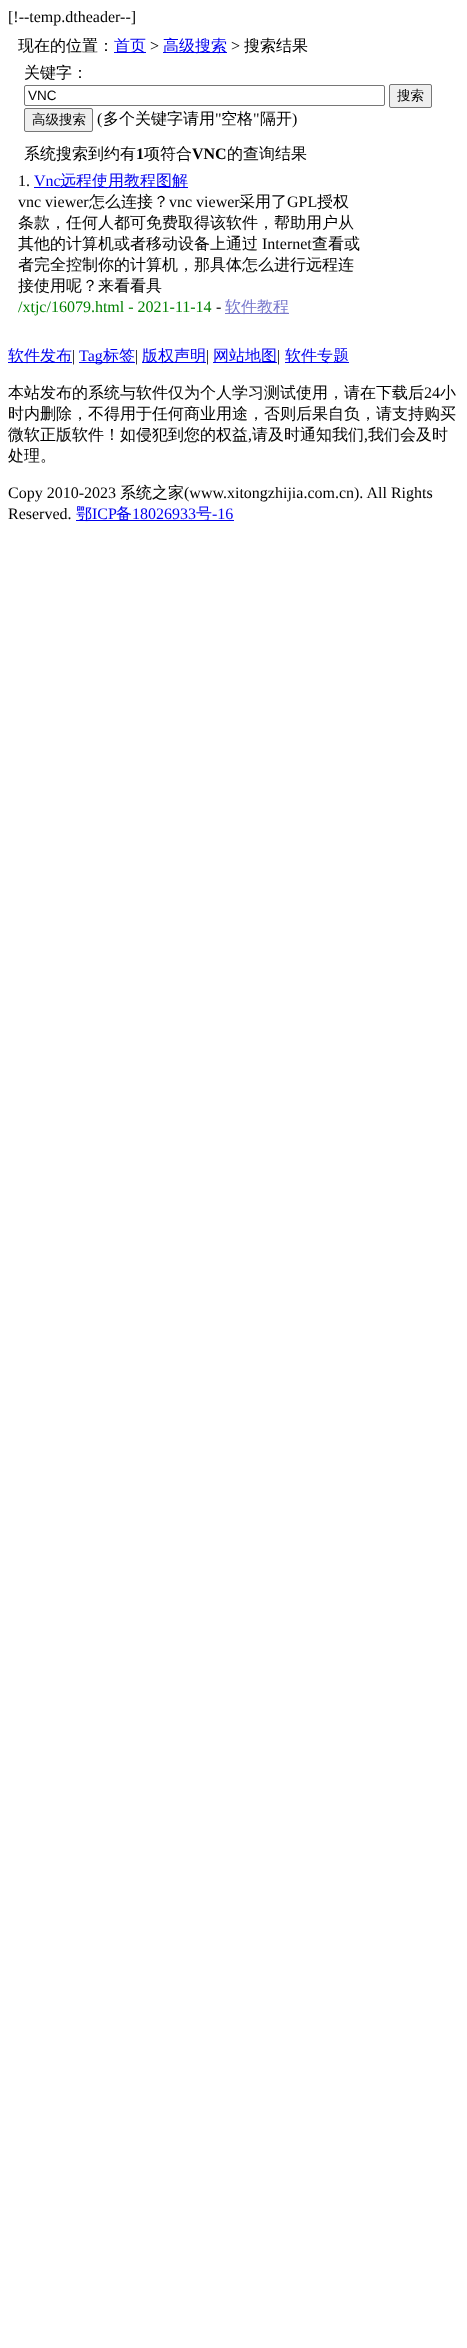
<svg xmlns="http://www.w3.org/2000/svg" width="467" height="2348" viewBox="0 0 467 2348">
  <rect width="100%" height="100%" fill="#fff"/>
  <path d="M114 52h32v1H114z" fill="#00e"/>
  <path d="M163 52h64v1H163z" fill="#00e"/>
  <rect x="24.5" y="85.5" width="360" height="20" rx="1.5" fill="none" stroke="#767676"/>
  <rect x="389.5" y="84.5" width="42" height="23" rx="1.5" fill="#efefef" stroke="#767676"/>
  <rect x="24.5" y="108.5" width="68" height="23" rx="1.5" fill="#efefef" stroke="#767676"/>
  <path d="M34 187h154v1H34z" fill="#00e"/>
  <path d="M225 313h64v1H225z" fill="#77c"/>
  <path d="M8 362h64v1H8z" fill="#00e"/>
  <path d="M79 362h56v1H79z" fill="#00e"/>
  <path d="M142 362h64v1H142z" fill="#00e"/>
  <path d="M213 362h64v1H213z" fill="#00e"/>
  <path d="M285 362h64v1H285z" fill="#00e"/>
  <path d="M76 520h158v1H76z" fill="#00e"/>
  <text x="8" y="22" font-family="Liberation Serif" font-size="16" fill="#000">[!--temp.dtheader--]</text>
  <text x="18" y="51" font-family="WenQuanYi Zen Hei" font-size="16" font-weight="500" fill="#000">现在的位置：</text>
  <text x="114" y="51" font-family="WenQuanYi Zen Hei" font-size="16" font-weight="500" fill="#00e">首页</text>
  <text x="150" y="51" font-family="Liberation Serif" font-size="16" fill="#000">&gt;</text>
  <text x="163" y="51" font-family="WenQuanYi Zen Hei" font-size="16" font-weight="500" fill="#00e">高级搜索</text>
  <text x="231" y="51" font-family="Liberation Serif" font-size="16" fill="#000">&gt;</text>
  <g font-family="WenQuanYi Zen Hei" font-size="16" font-weight="500" fill="#000">
    <text x="244" y="51">搜索结果</text>
    <text x="24" y="78">关键字：</text>
  </g>
  <text x="28" y="100" font-family="Liberation Sans" font-size="13.5" fill="#000">VNC</text>
  <g font-family="WenQuanYi Zen Hei" font-size="13.5" font-weight="500" fill="#000">
    <text x="397" y="100">搜索</text>
    <text x="32" y="124">高级搜索</text>
  </g>
  <text x="97" y="124" font-family="Liberation Serif" font-size="16" fill="#000">(</text>
  <text x="103" y="124" font-family="WenQuanYi Zen Hei" font-size="16" font-weight="500" fill="#000">多个关键字请用</text>
  <text x="215" y="124" font-family="Liberation Serif" font-size="16" fill="#000">"</text>
  <text x="221" y="124" font-family="WenQuanYi Zen Hei" font-size="16" font-weight="500" fill="#000">空格</text>
  <text x="253" y="124" font-family="Liberation Serif" font-size="16" fill="#000">"</text>
  <text x="260" y="124" font-family="WenQuanYi Zen Hei" font-size="16" font-weight="500" fill="#000">隔开</text>
  <text x="292" y="124" font-family="Liberation Serif" font-size="16" fill="#000">)</text>
  <text x="24" y="159" font-family="WenQuanYi Zen Hei" font-size="16" font-weight="500" fill="#000">系统搜索到约有</text>
  <text x="136" y="159" font-family="Liberation Serif" font-size="16" font-weight="bold" fill="#000">1</text>
  <text x="144" y="159" font-family="WenQuanYi Zen Hei" font-size="16" font-weight="500" fill="#000">项符合</text>
  <text x="192" y="159" font-family="Liberation Serif" font-size="16" font-weight="bold" fill="#000">VNC</text>
  <text x="227" y="159" font-family="WenQuanYi Zen Hei" font-size="16" font-weight="500" fill="#000">的查询结果</text>
  <text x="18" y="186" font-family="Liberation Serif" font-size="16" fill="#000">1.</text>
  <text x="34" y="186" font-family="Liberation Serif" font-size="16" fill="#00e">Vnc</text>
  <text x="60" y="186" font-family="WenQuanYi Zen Hei" font-size="16" font-weight="500" fill="#00e">远程使用教程图解</text>
  <text x="18" y="207" font-family="Liberation Serif" font-size="16" fill="#000">vnc viewer</text>
  <text x="89" y="207" font-family="WenQuanYi Zen Hei" font-size="16" font-weight="500" fill="#000">怎么连接？</text>
  <text x="169" y="207" font-family="Liberation Serif" font-size="16" fill="#000">vnc viewer</text>
  <text x="239" y="207" font-family="WenQuanYi Zen Hei" font-size="16" font-weight="500" fill="#000">采用了</text>
  <text x="287" y="207" font-family="Liberation Serif" font-size="16" fill="#000">GPL</text>
  <g font-family="WenQuanYi Zen Hei" font-size="16" font-weight="500" fill="#000">
    <text x="317" y="207">授权</text>
    <text x="18" y="228">条款，任何人都可免费取得该软件，帮助用户从</text>
    <text x="18" y="249">其他的计算机或者移动设备上通过</text>
  </g>
  <text x="262" y="249" font-family="Liberation Serif" font-size="16" fill="#000">Internet</text>
  <g font-family="WenQuanYi Zen Hei" font-size="16" font-weight="500" fill="#000">
    <text x="312" y="249">查看或</text>
    <text x="18" y="270">者完全控制你的计算机，那具体怎么进行远程连</text>
    <text x="18" y="291">接使用呢？来看看具</text>
  </g>
  <text x="18" y="312" font-family="Liberation Serif" font-size="16" fill="#008000">/xtjc/16079.html - 2021-11-14</text>
  <text x="216" y="312" font-family="Liberation Serif" font-size="16" fill="#000">-</text>
  <text x="225" y="312" font-family="WenQuanYi Zen Hei" font-size="16" font-weight="500" fill="#77c">软件教程</text>
  <text x="8" y="361" font-family="WenQuanYi Zen Hei" font-size="16" font-weight="500" fill="#00e">软件发布</text>
  <text x="72" y="361" font-family="Liberation Serif" font-size="16" fill="#000">|</text>
  <text x="79" y="361" font-family="Liberation Serif" font-size="16" fill="#00e">Tag</text>
  <text x="103" y="361" font-family="WenQuanYi Zen Hei" font-size="16" font-weight="500" fill="#00e">标签</text>
  <text x="135" y="361" font-family="Liberation Serif" font-size="16" fill="#000">|</text>
  <text x="142" y="361" font-family="WenQuanYi Zen Hei" font-size="16" font-weight="500" fill="#00e">版权声明</text>
  <text x="206" y="361" font-family="Liberation Serif" font-size="16" fill="#000">|</text>
  <text x="213" y="361" font-family="WenQuanYi Zen Hei" font-size="16" font-weight="500" fill="#00e">网站地图</text>
  <text x="277" y="361" font-family="Liberation Serif" font-size="16" fill="#000">|</text>
  <text x="285" y="361" font-family="WenQuanYi Zen Hei" font-size="16" font-weight="500" fill="#00e">软件专题</text>
  <text x="8" y="398" font-family="WenQuanYi Zen Hei" font-size="16" font-weight="500" fill="#000">本站发布的系统与软件仅为个人学习测试使用，请在下载后</text>
  <text x="424" y="398" font-family="Liberation Serif" font-size="16" fill="#000">24</text>
  <g font-family="WenQuanYi Zen Hei" font-size="16" font-weight="500" fill="#000">
    <text x="440" y="398">小</text>
    <text x="8" y="419">时内删除，不得用于任何商业用途，否则后果自负，请支持购买</text>
    <text x="8" y="440">微软正版软件！如侵犯到您的权益</text>
  </g>
  <text x="248" y="440" font-family="Liberation Serif" font-size="16" fill="#000">,</text>
  <text x="252" y="440" font-family="WenQuanYi Zen Hei" font-size="16" font-weight="500" fill="#000">请及时通知我们</text>
  <text x="364" y="440" font-family="Liberation Serif" font-size="16" fill="#000">,</text>
  <g font-family="WenQuanYi Zen Hei" font-size="16" font-weight="500" fill="#000">
    <text x="368" y="440">我们会及时</text>
    <text x="8" y="461">处理。</text>
  </g>
  <text x="8" y="498" font-family="Liberation Serif" font-size="16" fill="#000">Copy 2010-2023</text>
  <text x="120" y="498" font-family="WenQuanYi Zen Hei" font-size="16" font-weight="500" fill="#000">系统之家</text>
  <g font-family="Liberation Serif" font-size="16" fill="#000">
    <text x="184" y="498">(www.xitongzhijia.com.cn). All Rights</text>
    <text x="8" y="519">Reserved.</text>
  </g>
  <text x="76" y="519" font-family="WenQuanYi Zen Hei" font-size="16" font-weight="500" fill="#00e">鄂</text>
  <text x="92" y="519" font-family="Liberation Serif" font-size="16" fill="#00e">ICP</text>
  <text x="116" y="519" font-family="WenQuanYi Zen Hei" font-size="16" font-weight="500" fill="#00e">备</text>
  <text x="132" y="519" font-family="Liberation Serif" font-size="16" fill="#00e">18026933</text>
  <text x="196" y="519" font-family="WenQuanYi Zen Hei" font-size="16" font-weight="500" fill="#00e">号</text>
  <text x="212" y="519" font-family="Liberation Serif" font-size="16" fill="#00e">-16</text>
</svg>
